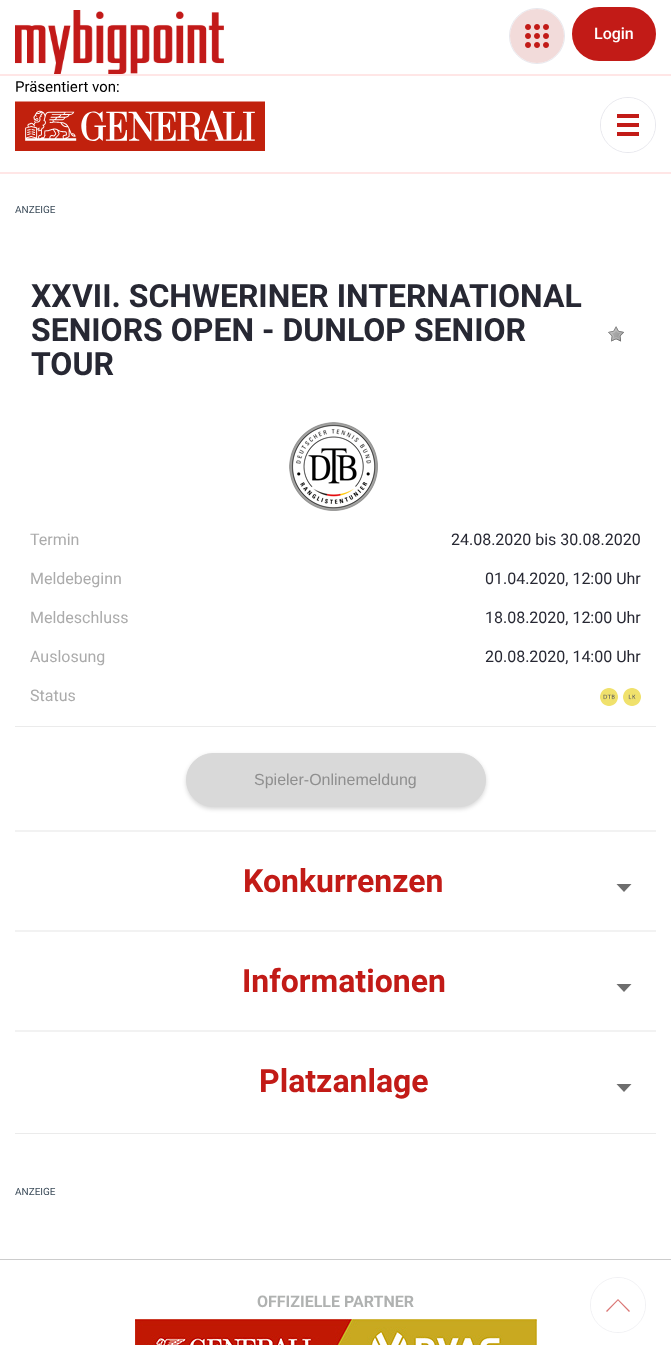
<svg xmlns="http://www.w3.org/2000/svg" width="671" height="1345" viewBox="0 0 671 1345">
  <rect width="100%" height="100%" fill="#fff"/>
  <image x="15" y="10" width="209" height="64" href="img/1.png"/>
  <circle cx="537" cy="36" r="27.5" fill="none" stroke="#e7e7ed"/>
  <circle cx="537" cy="36" r="27" fill="#f2dbda"/>
  <image x="525" y="24" width="24" height="24" href="img/2.png"/>
  <rect x="573" y="8" width="82" height="52" rx="26" fill="#c21b17" stroke="#c21b17" stroke-width="2"/>
  <image x="15" y="81" width="250" height="70" href="img/3.png"/>
  <path d="M0 74h671v2H0z" fill="#ffe6e6"/>
  <path d="M0 172h671v2H0z" fill="#ffe6e6"/>
  <circle cx="628" cy="125" r="27.5" fill="none" stroke="#e7e7ed"/>
  <circle cx="628" cy="125" r="27" fill="#fff"/>
  <path d="M617 114h22v4H617z" fill="#c21b17"/>
  <path d="M617 123h22v4H617z" fill="#c21b17"/>
  <path d="M617 132h22v4H617z" fill="#c21b17"/>
  <image x="608" y="326" width="16" height="16" href="img/4.png"/>
  <image x="289" y="422" width="89" height="89" href="img/5.png"/>
  <image x="600" y="688" width="18" height="18" href="img/6.png"/>
  <image x="623" y="688" width="18" height="18" href="img/7.png"/>
  <path d="M15 726h641v1H15z" fill="#ebebeb"/>
  <rect x="186" y="755" width="300" height="54" rx="27" fill="#00000029" filter="blur(2px)"/>
  <rect x="186.5" y="753.5" width="299" height="53" rx="26.5" fill="#d9d9d9" stroke="#d9d9d9"/>
  <path d="M15 830h641v2H15z" fill="#f2f2f2"/>
  <path d="M631.5 884L624 892L616.5 884Z" fill="#6e6e6e"/>
  <path d="M15 930h641v2H15z" fill="#f2f2f2"/>
  <path d="M631.5 984L624 992L616.5 984Z" fill="#6e6e6e"/>
  <path d="M15 1030h641v2H15z" fill="#f2f2f2"/>
  <path d="M631.5 1084L624 1092L616.5 1084Z" fill="#6e6e6e"/>
  <path d="M15 1133h641v1H15z" fill="#ebebeb"/>
  <circle cx="618" cy="1305" r="27.5" fill="none" stroke="#f1f1f4"/>
  <circle cx="618" cy="1305" r="27" fill="#fff"/>
  <path d="M618 1300.5L607 1312L606 1311L618 1299L630 1311L629 1312Z" fill="#da7674"/>
  <path d="M0 1259h671v1H0z" fill="#ccc"/>
  <image x="135" y="1319" width="402" height="26" href="img/8.png"/>
  <text x="594" y="39" font-family="Roboto" font-size="16" font-weight="500" fill="#fff">Login</text>
  <text x="15" y="213" font-family="Roboto" font-size="10" fill="#3b4b59">ANZEIGE</text>
  <g font-family="'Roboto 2'" font-size="32" font-weight="bold" fill="#272833">
    <text x="31" y="307">XXVII. SCHWERINER INTERNATIONAL</text>
    <text x="31" y="341">SENIORS OPEN - DUNLOP SENIOR</text>
    <text x="31" y="375">TOUR</text>
  </g>
  <text x="30" y="545" font-family="'Roboto 2'" font-size="16" fill="#ababab">Termin</text>
  <text x="451" y="545" font-family="'Roboto 2'" font-size="16" fill="#272833">24.08.2020 bis 30.08.2020</text>
  <text x="30" y="584" font-family="'Roboto 2'" font-size="16" fill="#ababab">Meldebeginn</text>
  <text x="485" y="584" font-family="'Roboto 2'" font-size="16" fill="#272833">01.04.2020, 12:00 Uhr</text>
  <text x="30" y="623" font-family="'Roboto 2'" font-size="16" fill="#ababab">Meldeschluss</text>
  <text x="485" y="623" font-family="'Roboto 2'" font-size="16" fill="#272833">18.08.2020, 12:00 Uhr</text>
  <text x="30" y="662" font-family="'Roboto 2'" font-size="16" fill="#ababab">Auslosung</text>
  <text x="485" y="662" font-family="'Roboto 2'" font-size="16" fill="#272833">20.08.2020, 14:00 Uhr</text>
  <text x="30" y="701" font-family="'Roboto 2'" font-size="16" fill="#ababab">Status</text>
  <text x="254" y="785" font-family="Liberation Sans" font-size="16" fill="#8f8f8f">Spieler-Onlinemeldung</text>
  <g font-family="'Roboto 2'" font-size="32" font-weight="bold" fill="#c21b17">
    <text x="243" y="892">Konkurrenzen</text>
    <text x="242" y="992">Informationen</text>
    <text x="259" y="1092">Platzanlage</text>
  </g>
  <text x="15" y="1195" font-family="'Roboto 2'" font-size="10" fill="#3b4b59">ANZEIGE</text>
  <text x="257" y="1307" font-family="Roboto" font-size="16" font-weight="bold" fill="#b0b2b1">OFFIZIELLE PARTNER</text>
</svg>
